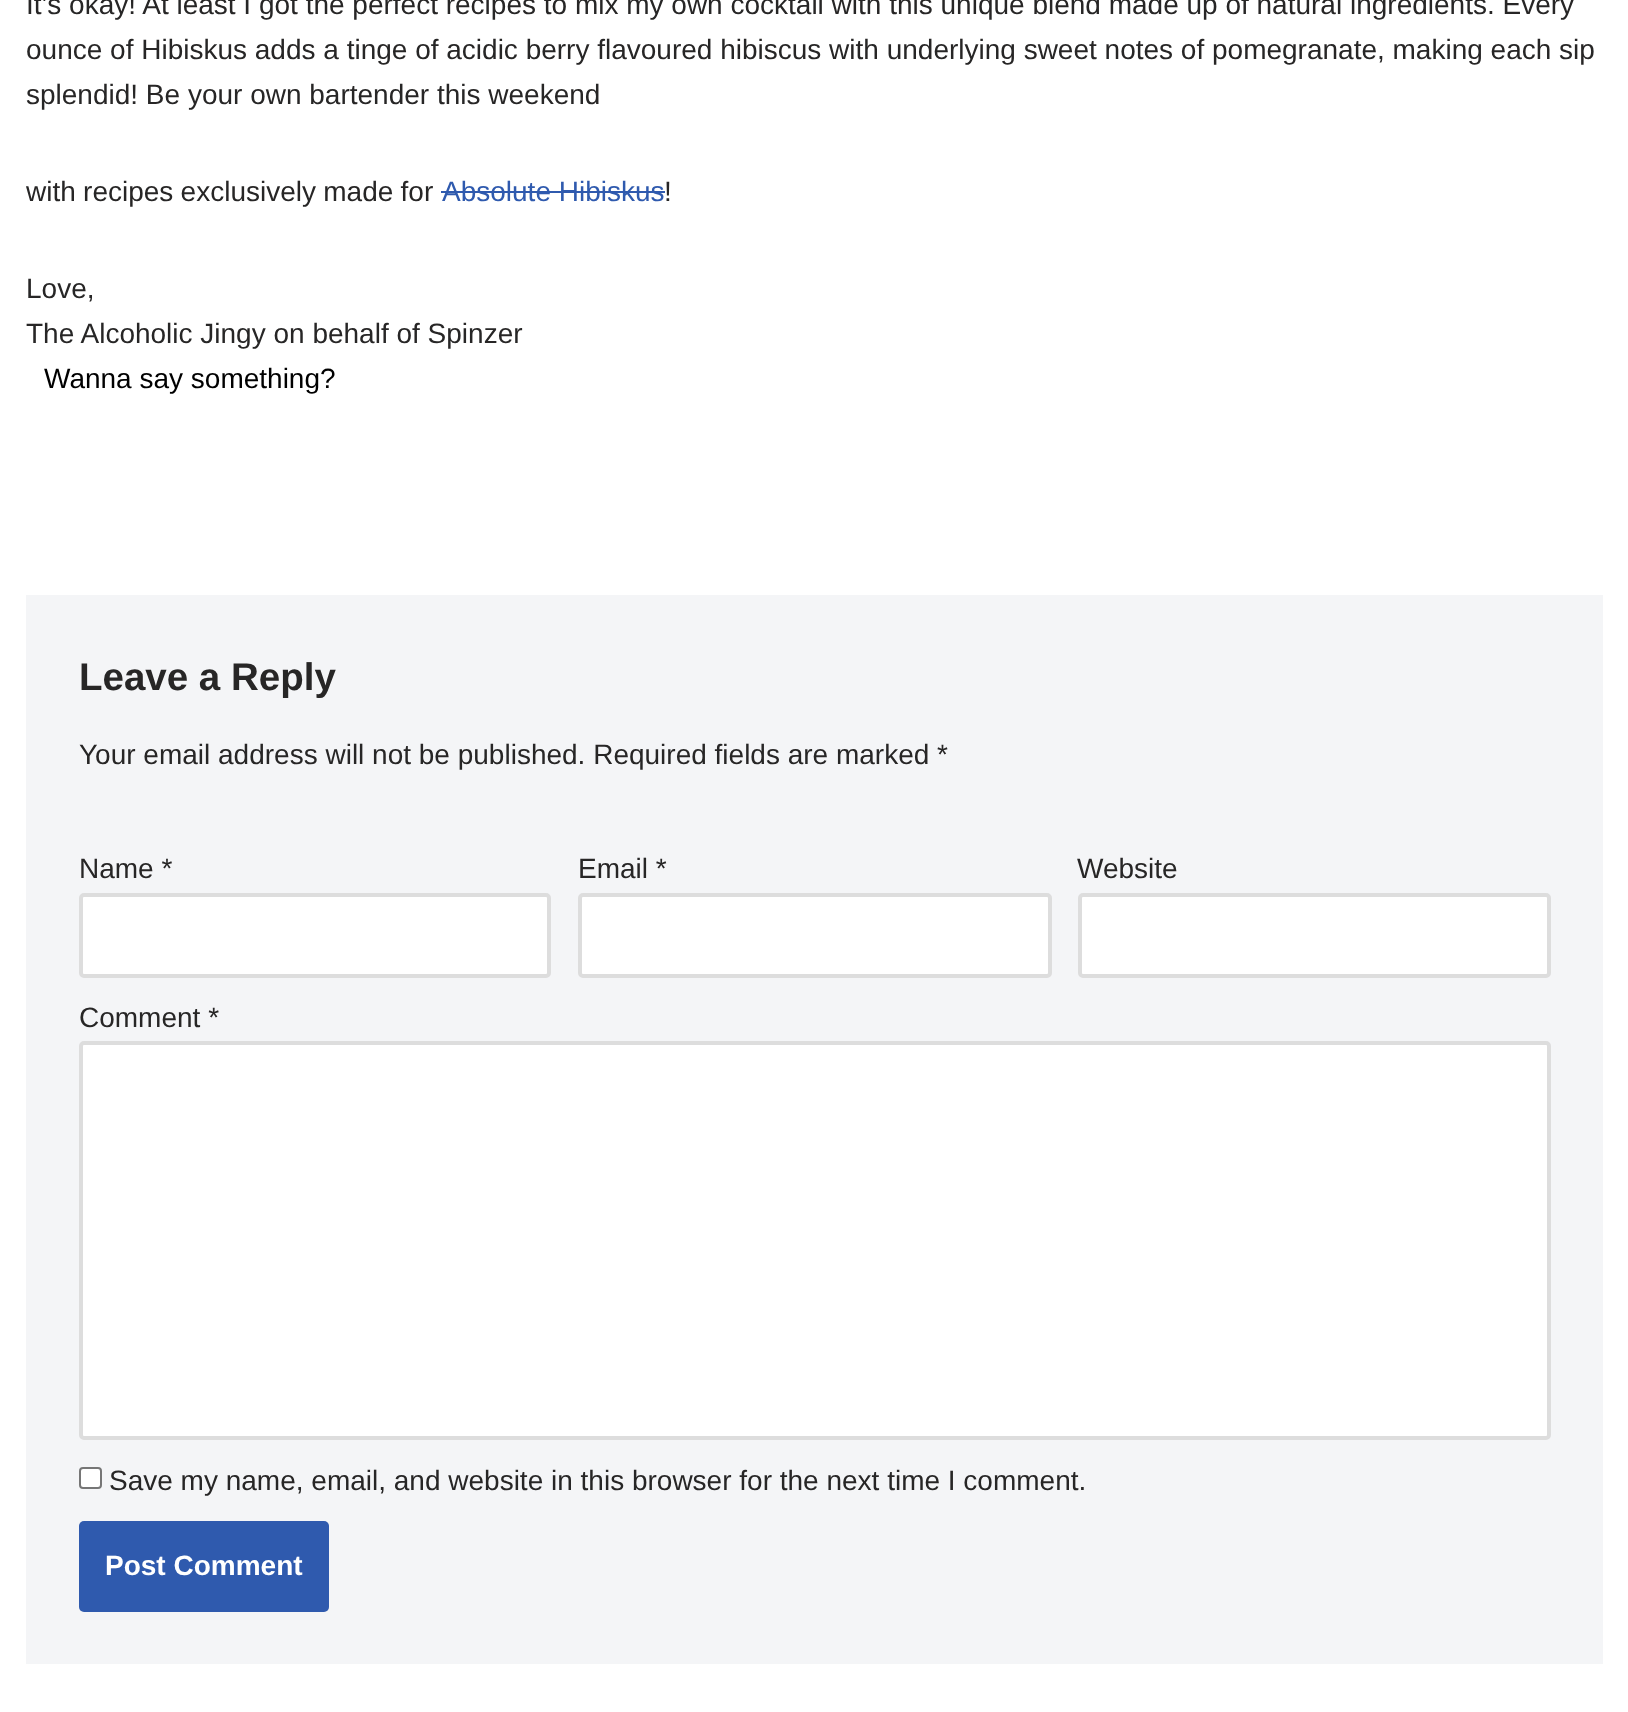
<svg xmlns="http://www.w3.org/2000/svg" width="1628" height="1712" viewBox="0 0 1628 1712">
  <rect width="100%" height="100%" fill="#fff"/>
  <path d="M441 191h224v2H441z" fill="#2f5aae"/>
  <path d="M26 595h1577v1069H26z" fill="#f4f5f7"/>
  <rect x="81" y="895" width="468" height="81" rx="3" fill="#fff" stroke="#ddd" stroke-width="4"/>
  <rect x="580" y="895" width="470" height="81" rx="3" fill="#fff" stroke="#ddd" stroke-width="4"/>
  <rect x="1080" y="895" width="469" height="81" rx="3" fill="#fff" stroke="#ddd" stroke-width="4"/>
  <rect x="81" y="1043" width="1468" height="395" rx="3" fill="#fff" stroke="#ddd" stroke-width="4"/>
  <rect x="80" y="1468" width="21" height="20" rx="3" fill="#fff" stroke="#767676" stroke-width="2"/>
  <rect x="79" y="1521" width="250" height="91" rx="5" fill="#2f5aae"/>
  <g font-family="Liberation Sans" font-size="28" fill="#272626">
    <text x="26" y="14">It’s okay! At least I got the perfect recipes to mix my own cocktail with this unique blend made up of natural ingredients. Every</text>
    <text x="26" y="59">ounce of Hibiskus adds a tinge of acidic berry flavoured hibiscus with underlying sweet notes of pomegranate, making each sip</text>
    <text x="26" y="104">splendid! Be your own bartender this weekend</text>
    <text x="26" y="201" word-spacing="-0.5">with recipes exclusively made for</text>
  </g>
  <text x="442" y="201" font-family="Liberation Sans" font-size="28" fill="#2f5aae">Absolute Hibiskus</text>
  <g font-family="Liberation Sans" font-size="28" fill="#272626">
    <text x="664" y="201">!</text>
    <text x="26" y="298">Love,</text>
    <text x="26" y="343">The Alcoholic Jingy on behalf of Spinzer</text>
  </g>
  <text x="44" y="388" font-family="Liberation Sans" font-size="28" fill="#000">Wanna say something?</text>
  <text x="79" y="690" font-family="Liberation Sans" font-size="38.5" font-weight="bold" fill="#272626">Leave a Reply</text>
  <g font-family="Liberation Sans" font-size="28" fill="#272626">
    <text x="79" y="764">Your email address will not be published. Required fields are marked *</text>
    <text x="79" y="878">Name *</text>
    <text x="578" y="878">Email *</text>
    <text x="1077" y="878">Website</text>
    <text x="79" y="1027">Comment *</text>
    <text x="109" y="1490">Save my name, email, and website in this browser for the next time I comment.</text>
  </g>
  <text x="105" y="1575" font-family="Liberation Sans" font-size="28" font-weight="bold" fill="#fff">Post Comment</text>
</svg>
